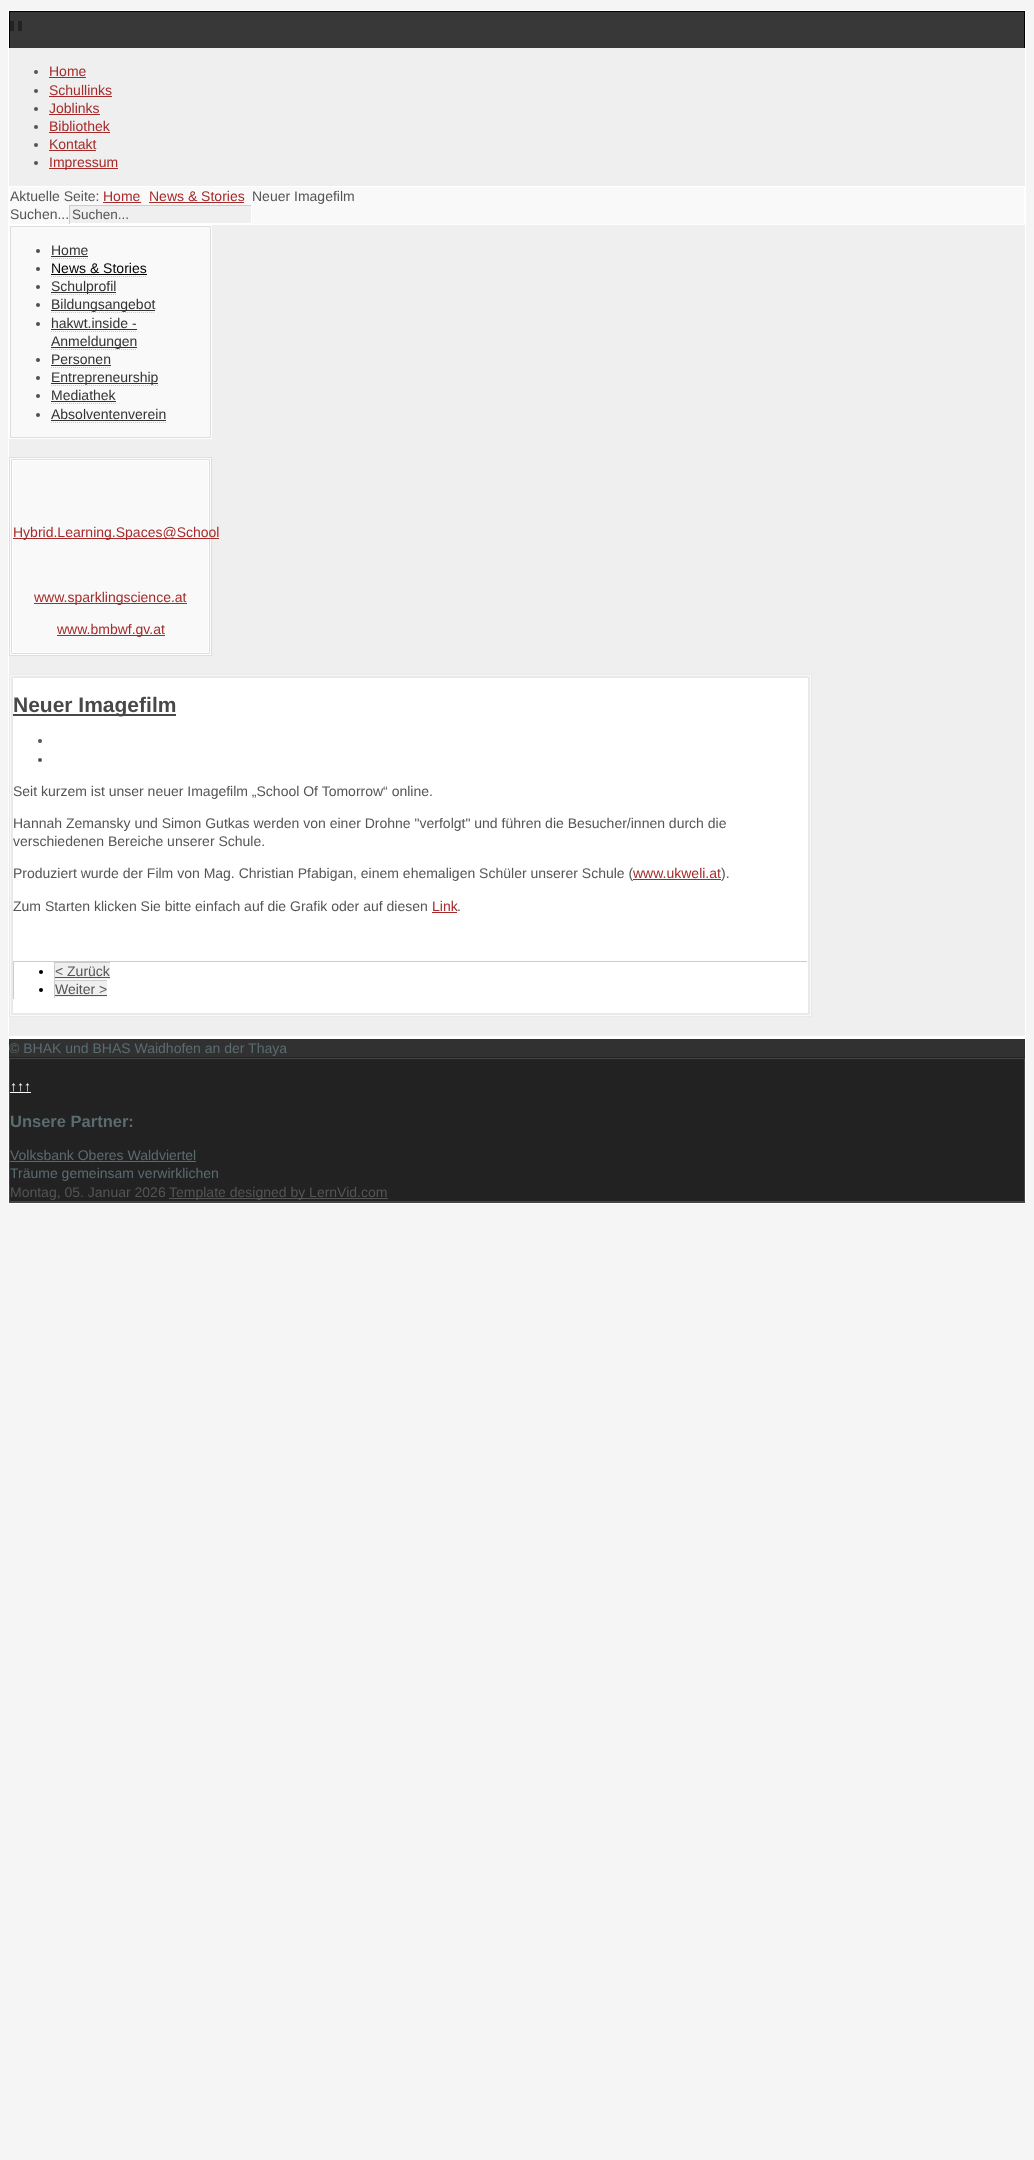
<svg xmlns="http://www.w3.org/2000/svg" width="1034" height="2160" viewBox="0 0 1034 2160">
  <rect width="100%" height="100%" fill="#f5f5f5"/>
  <path d="M9 48h1016v988H9z" fill="#efefef"/>
  <path d="M8.5 10.5h1017v1026H8.5z" fill="none" stroke="#fff"/>
  <path d="M10 12h1014v36H10z" fill="#383838"/>
  <path d="M9 11h1016v1H9z" fill="#000"/>
  <path d="M1024 11h1v37H1024z" fill="#000"/>
  <path d="M9 11h1v37H9z" fill="#000"/>
  <path d="M10 21h4v10H10z" fill="#222"/>
  <path d="M18 21h4v10H18z" fill="#222"/>
  <circle cx="36" cy="72" r="2" fill="#555"/>
  <path d="M49 77h37v1H49z" fill="#a52a2a"/>
  <circle cx="36" cy="91" r="2" fill="#555"/>
  <path d="M49 96h63v1H49z" fill="#a52a2a"/>
  <circle cx="36" cy="109" r="2" fill="#555"/>
  <path d="M49 114h51v1H49z" fill="#a52a2a"/>
  <circle cx="36" cy="127" r="2" fill="#555"/>
  <path d="M49 132h61v1H49z" fill="#a52a2a"/>
  <circle cx="36" cy="145" r="2" fill="#555"/>
  <path d="M49 150h47v1H49z" fill="#a52a2a"/>
  <circle cx="36" cy="163" r="2" fill="#555"/>
  <path d="M49 168h69v1H49z" fill="#a52a2a"/>
  <path d="M9.5 186.5h1015v38H9.5z" fill="#f9f9f9" stroke="#fff"/>
  <path d="M103 202h38v1H103z" fill="#a52a2a"/>
  <path d="M149 202h95v1H149z" fill="#a52a2a"/>
  <path d="M70 206h181v17H70z" fill="#efefef"/>
  <path d="M69 205h183v1H69z" fill="#ccc"/>
  <path d="M251 205h1v19H251z" fill="#fff"/>
  <path d="M69 223h183v1H69z" fill="#fff"/>
  <path d="M69 205h1v19H69z" fill="#ccc"/>
  <path d="M9.5 225.5h202v213H9.5z" fill="none" stroke="#fff"/>
  <path d="M10.5 226.5h200v211H10.5z" fill="#f9f9f9" stroke="#ddd"/>
  <circle cx="38" cy="251" r="2" fill="#505050"/>
  <path d="M51 258.5H88" fill="none" stroke="#ccc" stroke-dasharray="1 1"/>
  <path d="M51 256h37v1H51z" fill="#333"/>
  <circle cx="38" cy="269" r="2" fill="#505050"/>
  <path d="M51 276.5H147" fill="none" stroke="#ccc" stroke-dasharray="1 1"/>
  <path d="M51 274h96v1H51z" fill="#000"/>
  <circle cx="38" cy="287" r="2" fill="#505050"/>
  <path d="M51 294.5H116" fill="none" stroke="#ccc" stroke-dasharray="1 1"/>
  <path d="M51 292h65v1H51z" fill="#333"/>
  <circle cx="38" cy="305" r="2" fill="#505050"/>
  <path d="M51 312.5H155" fill="none" stroke="#ccc" stroke-dasharray="1 1"/>
  <path d="M51 310h104v1H51z" fill="#333"/>
  <circle cx="38" cy="324" r="2" fill="#505050"/>
  <path d="M51 331.5H137" fill="none" stroke="#ccc" stroke-dasharray="1 1"/>
  <path d="M51 329h86v1H51z" fill="#333"/>
  <path d="M51 349.5H137" fill="none" stroke="#ccc" stroke-dasharray="1 1"/>
  <path d="M51 347h86v1H51z" fill="#333"/>
  <circle cx="38" cy="360" r="2" fill="#505050"/>
  <path d="M51 367.5H111" fill="none" stroke="#ccc" stroke-dasharray="1 1"/>
  <path d="M51 365h60v1H51z" fill="#333"/>
  <circle cx="38" cy="378" r="2" fill="#505050"/>
  <path d="M51 385.5H158" fill="none" stroke="#ccc" stroke-dasharray="1 1"/>
  <path d="M51 383h107v1H51z" fill="#333"/>
  <circle cx="38" cy="396" r="2" fill="#505050"/>
  <path d="M51 403.5H116" fill="none" stroke="#ccc" stroke-dasharray="1 1"/>
  <path d="M51 401h65v1H51z" fill="#333"/>
  <circle cx="38" cy="415" r="2" fill="#505050"/>
  <path d="M51 422.5H166" fill="none" stroke="#ccc" stroke-dasharray="1 1"/>
  <path d="M51 420h115v1H51z" fill="#333"/>
  <path d="M9.5 457.5h202v198H9.5z" fill="#fff" stroke="#ddd"/>
  <path d="M13 461h195v191H13z" fill="#f9f9f9"/>
  <path d="M11.5 459.5h198v194H11.5z" fill="none" stroke="#ddd"/>
  <path d="M13 538h206v1H13z" fill="#a52a2a"/>
  <path d="M34 603h153v1H34z" fill="#a52a2a"/>
  <path d="M57 635h108v1H57z" fill="#a52a2a"/>
  <path d="M9.5 674.5h802v342H9.5z" fill="#f9f9f9" stroke="#e9e9e9"/>
  <path d="M11.5 676.5h798v338H11.5z" fill="none" stroke="#e9e9e9"/>
  <path d="M12.5 677.5h796v336H12.5z" fill="#fff" stroke="#e9e9e9"/>
  <path d="M13 714h163v2H13z" fill="#484848"/>
  <circle cx="40" cy="741" r="2" fill="#555"/>
  <circle cx="40" cy="760" r="2" fill="#555"/>
  <path d="M432 912h25v1H432z" fill="#a52a2a"/>
  <path d="M13 961h795v1H13z" fill="#ccc"/>
  <path d="M807 961h1v1H807z" fill="#fff"/>
  <path d="M13 961h1v38H13z" fill="#ccc"/>
  <circle cx="41" cy="972" r="2" fill="#000"/>
  <path d="M55 963h55v16H55z" fill="#efefef"/>
  <path d="M54 962h57v1H54z" fill="#ccc"/>
  <path d="M110 962h1v1H110z" fill="#fff"/>
  <path d="M54 962h1v18H54z" fill="#ccc"/>
  <path d="M55 977h55v1H55z" fill="#555"/>
  <circle cx="41" cy="990" r="2" fill="#000"/>
  <path d="M55 981h52v16H55z" fill="#efefef"/>
  <path d="M54 980h54v1H54z" fill="#ccc"/>
  <path d="M107 980h1v1H107z" fill="#fff"/>
  <path d="M54 980h1v18H54z" fill="#ccc"/>
  <path d="M55 995h52v1H55z" fill="#555"/>
  <path d="M8.5 1037.5h1017v166H8.5z" fill="none" stroke="#fff"/>
  <path d="M9 1039h1016v18H9z" fill="#313131"/>
  <path d="M9 1038h1016v1H9z" fill="#fff"/>
  <path d="M9 1057h1016v1H9z" fill="#222"/>
  <path d="M10 1059h1014v142H10z" fill="#222"/>
  <path d="M9 1058h1016v1H9z" fill="#444"/>
  <path d="M1024 1058h1v145H1024z" fill="#444"/>
  <path d="M9 1201h1016v2H9z" fill="#444"/>
  <path d="M9 1058h1v145H9z" fill="#444"/>
  <path d="M10 1092h21v1H10z" fill="#fff"/>
  <path d="M10 1161h186v1H10z" fill="#5b6c71"/>
  <path d="M169 1198h219v1H169z" fill="#555"/>
  <g font-family="Liberation Sans" font-size="14" fill="#a52a2a">
    <text x="49" y="76">Home</text>
    <text x="49" y="95">Schullinks</text>
    <text x="49" y="113">Joblinks</text>
    <text x="49" y="131">Bibliothek</text>
    <text x="49" y="149">Kontakt</text>
    <text x="49" y="167">Impressum</text>
  </g>
  <text x="10" y="201" font-family="Liberation Sans" font-size="14" fill="#555">Aktuelle Seite:</text>
  <g font-family="Liberation Sans" font-size="14" fill="#a52a2a">
    <text x="103" y="201">Home</text>
    <text x="149" y="201">News &amp; Stories</text>
  </g>
  <g font-family="Liberation Sans" font-size="14" fill="#555">
    <text x="252" y="201">Neuer Imagefilm</text>
    <text x="10" y="219">Suchen...</text>
  </g>
  <text x="72" y="219" font-family="Liberation Sans" font-size="13.5" fill="#555">Suchen...</text>
  <text x="51" y="255" font-family="Liberation Sans" font-size="14" fill="#333">Home</text>
  <text x="51" y="273" font-family="Liberation Sans" font-size="14" fill="#000">News &amp; Stories</text>
  <g font-family="Liberation Sans" font-size="14" fill="#333">
    <text x="51" y="291">Schulprofil</text>
    <text x="51" y="309">Bildungsangebot</text>
    <text x="51" y="328">hakwt.inside -</text>
    <text x="51" y="346">Anmeldungen</text>
    <text x="51" y="364">Personen</text>
    <text x="51" y="382">Entrepreneurship</text>
    <text x="51" y="400">Mediathek</text>
    <text x="51" y="419">Absolventenverein</text>
  </g>
  <g font-family="Liberation Sans" font-size="14" fill="#a52a2a">
    <text x="13" y="537">Hybrid.Learning.Spaces@School</text>
    <text x="34" y="602">www.sparklingscience.at</text>
    <text x="57" y="634">www.bmbwf.gv.at</text>
  </g>
  <text x="13" y="712" font-family="Liberation Sans" font-size="21" font-weight="bold" fill="#484848">Neuer Imagefilm</text>
  <g font-family="Liberation Sans" font-size="14" fill="#555">
    <text x="13" y="796">Seit kurzem ist unser neuer Imagefilm „School Of Tomorrow“ online.</text>
    <text x="13" y="828">Hannah Zemansky und Simon Gutkas werden von einer Drohne "verfolgt" und führen die Besucher/innen durch die</text>
    <text x="13" y="846">verschiedenen Bereiche unserer Schule.</text>
    <text x="13" y="878">Produziert wurde der Film von Mag. Christian Pfabigan, einem ehemaligen Schüler unserer Schule (</text>
  </g>
  <text x="633" y="878" font-family="Liberation Sans" font-size="14" fill="#a52a2a">www.ukweli.at</text>
  <path d="M633 879h88v1H633z" fill="#a52a2a"/>
  <g font-family="Liberation Sans" font-size="14" fill="#555">
    <text x="721" y="878">).</text>
    <text x="13" y="911">Zum Starten klicken Sie bitte einfach auf die Grafik oder auf diesen</text>
  </g>
  <text x="432" y="911" font-family="Liberation Sans" font-size="14" fill="#a52a2a">Link</text>
  <g font-family="Liberation Sans" font-size="14" fill="#555">
    <text x="457" y="911">.</text>
    <text x="55" y="976">&lt; Zurück</text>
    <text x="55" y="994">Weiter &gt;</text>
  </g>
  <text x="9" y="1053" font-family="Liberation Sans" font-size="14" fill="#5b6c71">© BHAK und BHAS Waidhofen an der Thaya</text>
  <text x="10" y="1091" font-family="Liberation Sans" font-size="14" fill="#fff">↑↑↑</text>
  <text x="10" y="1127" font-family="Liberation Sans" font-size="16.5" font-weight="bold" fill="#5b6c71">Unsere Partner:</text>
  <g font-family="Liberation Sans" font-size="14" fill="#5b6c71">
    <text x="10" y="1160">Volksbank Oberes Waldviertel</text>
    <text x="10" y="1178">Träume gemeinsam verwirklichen</text>
  </g>
  <g font-family="Liberation Sans" font-size="14" fill="#555">
    <text x="10" y="1197">Montag, 05. Januar 2026</text>
    <text x="169" y="1197">Template designed by LernVid.com</text>
  </g>
</svg>
